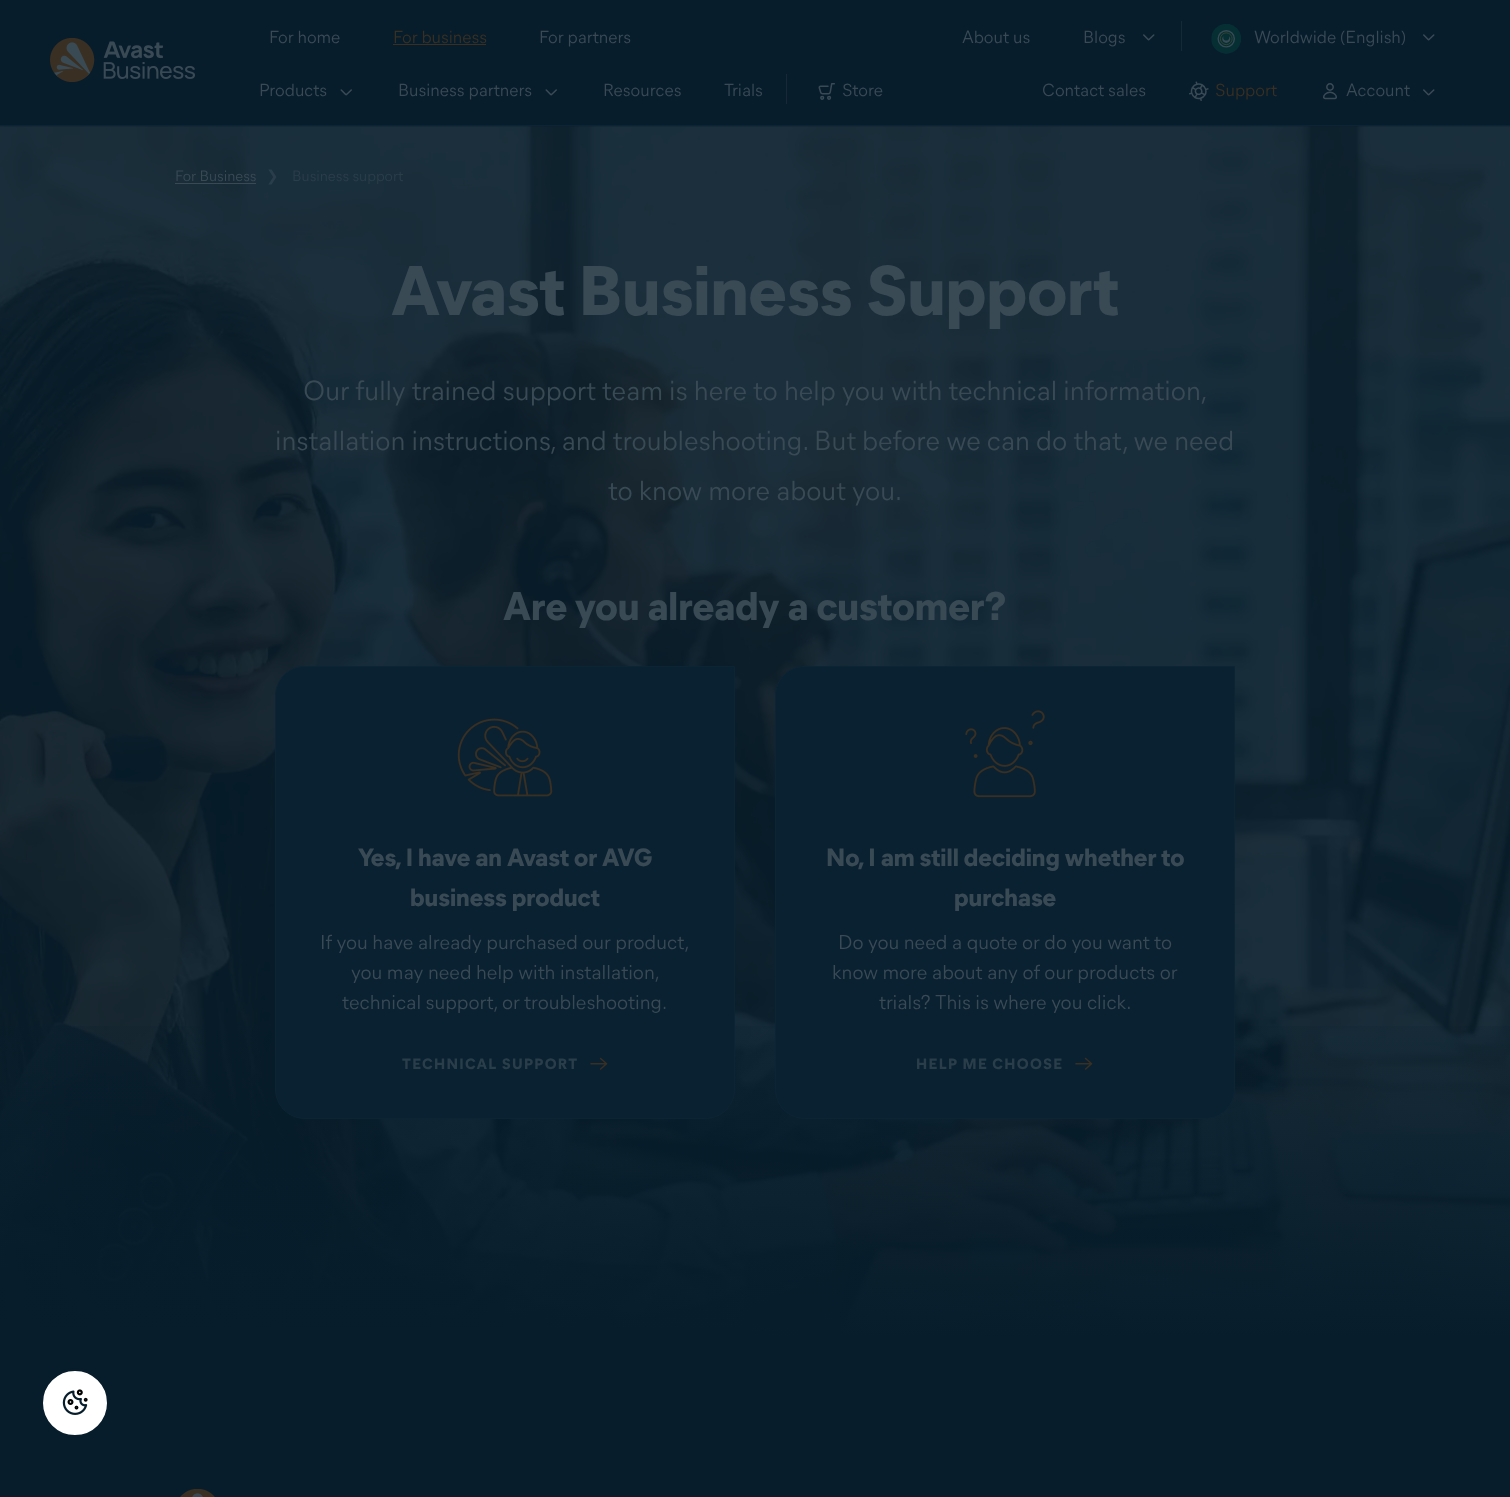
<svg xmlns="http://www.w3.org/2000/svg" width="1510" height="1497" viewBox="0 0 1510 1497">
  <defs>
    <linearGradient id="g1" gradientUnits="userSpaceOnUse" x1="755" y1="1339" x2="755" y2="126"><stop offset="0" stop-color="#071d2b"/><stop offset="0.3" stop-color="#071d2b" stop-opacity="0"/></linearGradient>
  </defs>
  <rect width="100%" height="100%" fill="#071d2b"/>
  <path d="M0 125h1510v1H0z" fill="#0c2535"/>
  <image x="50" y="38" width="145" height="44" href="img/1.png"/>
  <path d="M393 44h93v1H393z" fill="#392f22"/>
  <image x="1143" y="34" width="12" height="7" href="img/2.png"/>
  <path d="M1181 21h1v30H1181z" fill="#152936"/>
  <image x="1211" y="24" width="30" height="30" href="img/3.png"/>
  <image x="1423" y="34" width="12" height="7" href="img/2.png"/>
  <image x="340" y="89" width="12" height="7" href="img/4.png"/>
  <image x="545" y="89" width="12" height="7" href="img/4.png"/>
  <path d="M786 74h1v30H786z" fill="#152936"/>
  <image x="818" y="83" width="17" height="17" href="img/5.png"/>
  <image x="1189" y="81" width="20" height="20" href="img/6.png"/>
  <image x="1323" y="83" width="14" height="17" href="img/7.png"/>
  <image x="1423" y="89" width="12" height="7" href="img/2.png"/>
  <image x="0" y="126" width="1510" height="1211" href="img/8.png"/>
  <path d="M175 183h81v1H175z" fill="#394a55"/>
  <path d="M0 1026h1510v311H0z" fill="url(#g1)"/>
  <path d="M305 666.5H734.5V1089C734.5 1105.5 721.5 1118.5 705 1118.5H305C288.5 1118.5 275.5 1105.5 275.5 1089V696C275.5 679.5 288.5 666.5 305 666.5Z" fill="#0a2131" stroke="#0c2535"/>
  <image x="457" y="718" width="96" height="79" href="img/9.png"/>
  <image x="590" y="1057" width="18" height="13" href="img/10.png"/>
  <path d="M805 666.5H1234.5V1089C1234.5 1105.5 1221.5 1118.5 1205 1118.5H805C788.5 1118.5 775.5 1105.5 775.5 1089V696C775.5 679.5 788.5 666.5 805 666.5Z" fill="#0a2131" stroke="#0c2535"/>
  <image x="965" y="710" width="80" height="88" href="img/11.png"/>
  <image x="1075" y="1057" width="18" height="13" href="img/10.png"/>
  <circle cx="75" cy="1403" r="33.5" fill="#fff" stroke="#071d2b" stroke-width="3"/>
  <image x="62" y="1389" width="26" height="26" href="img/12.png"/>
  <image x="180" y="1489" width="35" height="8" href="img/13.png"/>
  <text x="269" y="43" font-family="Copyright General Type" font-size="17.5" fill="#394a55">For home</text>
  <text x="393" y="43" font-family="Copyright General Type" font-size="17.5" fill="#392f22">For business</text>
  <g font-family="Copyright General Type" font-size="17.5" fill="#394a55">
    <text x="539" y="43">For partners</text>
    <text x="962" y="43">About us</text>
    <text x="1083" y="43">Blogs</text>
    <text x="1254" y="43">Worldwide (English)</text>
    <text x="259" y="96">Products</text>
    <text x="398" y="96">Business partners</text>
    <text x="603" y="96">Resources</text>
    <text x="724" y="96">Trials</text>
    <text x="842" y="96">Store</text>
    <text x="1042" y="96">Contact sales</text>
  </g>
  <text x="1215" y="96" font-family="Copyright General Type" font-size="17.5" fill="#392f22">Support</text>
  <text x="1346" y="96" font-family="Copyright General Type" font-size="17.5" fill="#394a55">Account</text>
  <text x="175" y="181" font-family="Copyright General Type" font-size="15" fill="#394a55">For Business</text>
  <text x="266" y="181" font-family="DejaVu Sans" font-size="15" fill="#2a3e4a">❯</text>
  <text x="292" y="181" font-family="Copyright General Type" font-size="15" fill="#2a3e4a">Business support</text>
  <text x="391" y="315" font-family="Copyright General Type" font-size="70" font-weight="bold" fill="#394a55">Avast Business Support</text>
  <g font-family="Copyright General Type" font-size="27.5" fill="#394a55">
    <text x="303" y="400">Our fully trained support team is here to help you with technical information,</text>
    <text x="275" y="450">installation instructions, and troubleshooting. But before we can do that, we need</text>
    <text x="608" y="500">to know more about you.</text>
  </g>
  <text x="503" y="620" font-family="Copyright General Type" font-size="40" font-weight="bold" fill="#394a55">Are you already a customer?</text>
  <g font-family="Copyright General Type" font-size="25" font-weight="bold" fill="#394a55">
    <text x="358" y="866">Yes, I have an Avast or AVG</text>
    <text x="410" y="906">business product</text>
  </g>
  <g font-family="Copyright General Type" font-size="20" fill="#394a55">
    <text x="320" y="949">If you have already purchased our product,</text>
    <text x="351" y="979">you may need help with installation,</text>
    <text x="342" y="1009">technical support, or troubleshooting.</text>
  </g>
  <text x="402" y="1069" font-family="Copyright General Type" font-size="15" font-weight="bold" letter-spacing="1.25" fill="#2a3e4a">TECHNICAL SUPPORT</text>
  <g font-family="Copyright General Type" font-size="25" font-weight="bold" fill="#394a55">
    <text x="826" y="866">No, I am still deciding whether to</text>
    <text x="954" y="906">purchase</text>
  </g>
  <g font-family="Copyright General Type" font-size="20" fill="#394a55">
    <text x="838" y="949">Do you need a quote or do you want to</text>
    <text x="832" y="979">know more about any of our products or</text>
    <text x="879" y="1009">trials? This is where you click.</text>
  </g>
  <text x="916" y="1069" font-family="Copyright General Type" font-size="15" font-weight="bold" letter-spacing="1.25" fill="#2a3e4a">HELP ME CHOOSE</text>
</svg>
